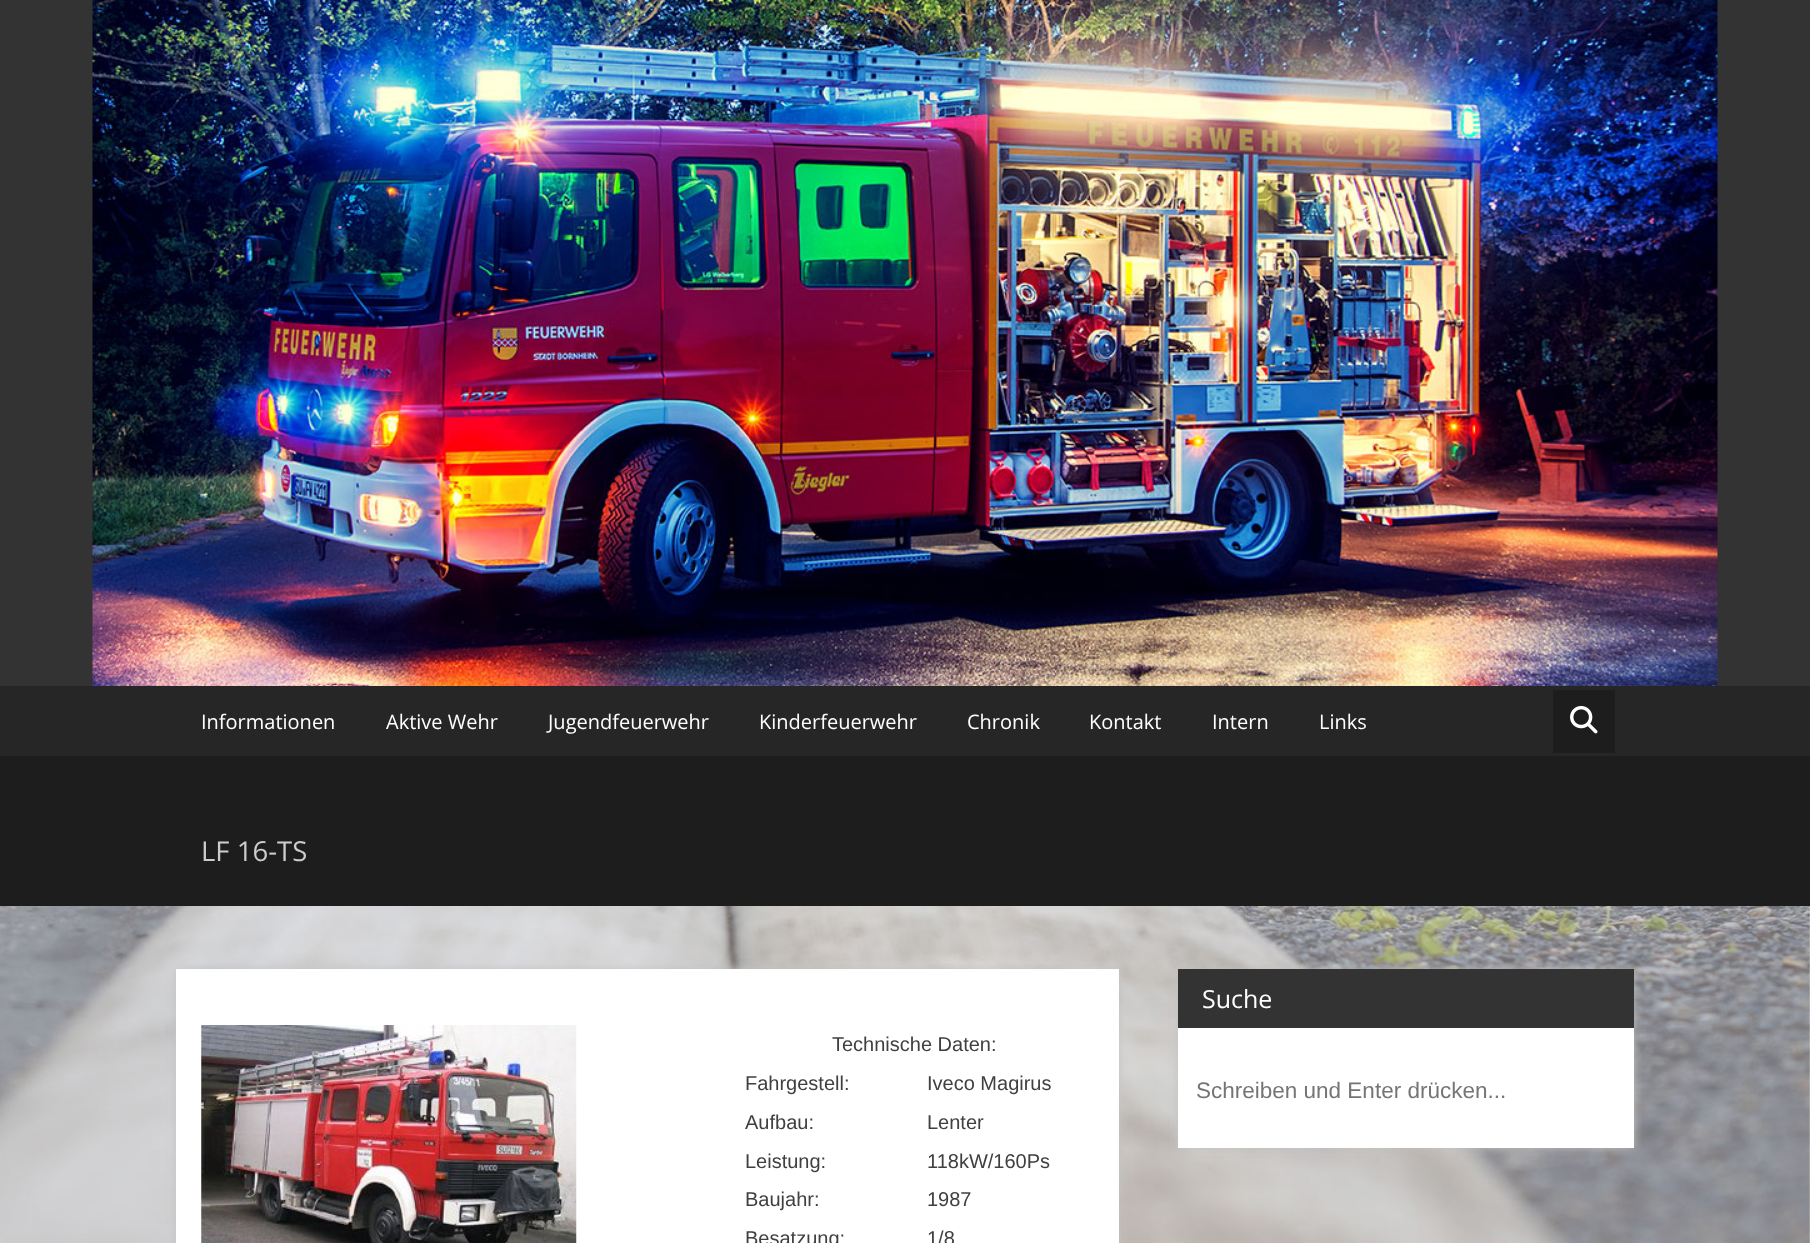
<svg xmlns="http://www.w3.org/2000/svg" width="1810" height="1243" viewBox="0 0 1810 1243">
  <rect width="100%" height="100%" fill="#fff"/>
  <image x="0" y="906" width="1810" height="337" href="img/1.png"/>
  <path d="M0 0h1810v686H0z" fill="#333"/>
  <image x="92" y="0" width="1626" height="686" href="img/2.png"/>
  <path d="M0 686h1810v70H0z" fill="#262626"/>
  <path d="M1553 690h62v63H1553z" fill="#1d1d1d"/>
  <image x="1570" y="705" width="28" height="29" href="img/3.png"/>
  <path d="M0 756h1810v150H0z" fill="#1d1d1d"/>
  <path d="M176 969h943v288H176z" fill="#c2c2c2" filter="blur(4.5px)"/>
  <path d="M176 969h943v274H176z" fill="#fff"/>
  <image x="201" y="1025" width="376" height="218" href="img/4.png"/>
  <path d="M1178 969h456v179H1178z" fill="#c2c2c2" filter="blur(4.5px)"/>
  <path d="M1178 1028h456v120H1178z" fill="#fff"/>
  <path d="M1178 969h456v59H1178z" fill="#333"/>
  <g font-family="Open Sans" font-size="20" fill="#fff">
    <text x="201" y="729">Informationen</text>
    <text x="386" y="729">Aktive Wehr</text>
    <text x="548" y="729">Jugendfeuerwehr</text>
    <text x="759" y="729">Kinderfeuerwehr</text>
    <text x="967" y="729">Chronik</text>
    <text x="1089" y="729">Kontakt</text>
    <text x="1212" y="729">Intern</text>
    <text x="1319" y="729">Links</text>
  </g>
  <text x="201" y="861" font-family="Open Sans" font-size="27.5" fill="#ccc">LF 16-TS</text>
  <g font-family="Liberation Sans" font-size="20" fill="#404040">
    <text x="832" y="1051">Technische Daten:</text>
    <text x="745" y="1090">Fahrgestell:</text>
    <text x="927" y="1090">Iveco Magirus</text>
    <text x="745" y="1129">Aufbau:</text>
    <text x="927" y="1129">Lenter</text>
    <text x="745" y="1168">Leistung:</text>
    <text x="927" y="1168">118kW/160Ps</text>
    <text x="745" y="1206">Baujahr:</text>
    <text x="927" y="1206">1987</text>
    <text x="745" y="1245">Besatzung:</text>
    <text x="927" y="1245">1/8</text>
  </g>
  <text x="1202" y="1008" font-family="Open Sans" font-size="25" fill="#fff">Suche</text>
  <text x="1196" y="1098" font-family="Liberation Sans" font-size="22.5" fill="#757575">Schreiben und Enter drücken...</text>
</svg>
